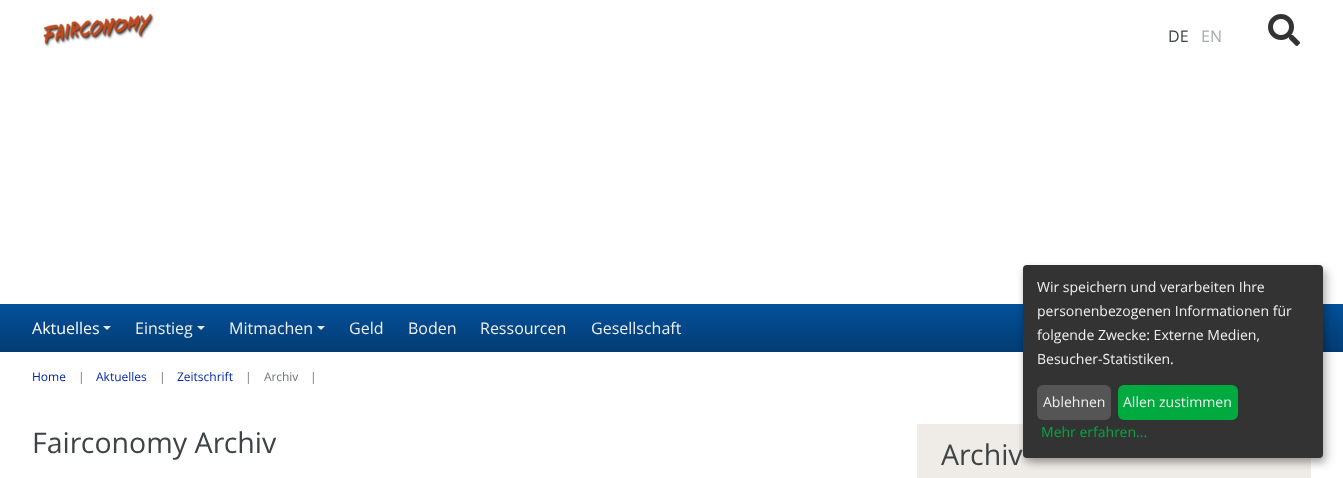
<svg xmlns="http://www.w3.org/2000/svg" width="1343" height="478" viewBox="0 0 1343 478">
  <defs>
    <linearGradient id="g1" gradientUnits="userSpaceOnUse" x1="672" y1="304" x2="672" y2="352"><stop offset="0" stop-color="#04519b"/><stop offset="1" stop-color="#033c73"/><stop offset="1" stop-color="#02325f"/></linearGradient>
  </defs>
  <rect width="100%" height="100%" fill="#fff"/>
  <image x="43" y="13" width="111" height="34" href="img/1.png"/>
  <image x="1268" y="14" width="32" height="32" href="img/2.png"/>
  <path d="M0 304h1343v48H0z" fill="url(#g1)"/>
  <path d="M103 326H111L107 330Z" fill="#e8eaf0"/>
  <path d="M197 326H205L201 330Z" fill="#e8eaf0"/>
  <path d="M317 326H325L321 330Z" fill="#e8eaf0"/>
  <path d="M917 424h394v54H917z" fill="#efebe7"/>
  <rect x="1028" y="270" width="300" height="193" rx="4" fill="#00000030" filter="blur(5px)"/>
  <rect x="1023" y="269" width="300" height="193" rx="4" fill="#00000033" filter="blur(3px)"/>
  <rect x="1023" y="265" width="300" height="193" rx="4" fill="#333"/>
  <rect x="1037" y="385" width="74" height="35" rx="6" fill="#555"/>
  <rect x="1118" y="385" width="120" height="35" rx="6" fill="#00aa3e"/>
  <text x="1168" y="42" font-family="Open Sans" font-size="16" fill="#3e4345">DE</text>
  <text x="1201" y="42" font-family="Open Sans" font-size="16" fill="#a3aaac">EN</text>
  <text x="32" y="334" font-family="Open Sans" font-size="16" fill="#fefefe">Aktuelles</text>
  <g font-family="Open Sans" font-size="16" fill="#efefef">
    <text x="135" y="334">Einstieg</text>
    <text x="229" y="334">Mitmachen</text>
    <text x="349" y="334">Geld</text>
    <text x="408" y="334">Boden</text>
    <text x="480" y="334">Ressourcen</text>
    <text x="591" y="334">Gesellschaft</text>
  </g>
  <text x="32" y="381" font-family="Open Sans" font-size="12" fill="#0026a8">Home</text>
  <text x="78" y="381" font-family="Open Sans" font-size="12" fill="#6e777b">|</text>
  <text x="96" y="381" font-family="Open Sans" font-size="12" fill="#0026a8">Aktuelles</text>
  <text x="159" y="381" font-family="Open Sans" font-size="12" fill="#6e777b">|</text>
  <text x="177" y="381" font-family="Open Sans" font-size="12" fill="#0026a8">Zeitschrift</text>
  <g font-family="Open Sans" font-size="12" fill="#6e777b">
    <text x="245" y="381">|</text>
    <text x="264" y="381">Archiv</text>
    <text x="310" y="381">|</text>
  </g>
  <g font-family="Open Sans" font-size="28.5" fill="#3e4345">
    <text x="32" y="453">Fairconomy Archiv</text>
    <text x="941" y="465">Archiv</text>
  </g>
  <g font-family="Open Sans" font-size="14" fill="#efefef">
    <text x="1037" y="292">Wir speichern und verarbeiten Ihre</text>
    <text x="1037" y="316">personenbezogenen Informationen für</text>
    <text x="1037" y="340">folgende Zwecke: Externe Medien,</text>
    <text x="1037" y="364">Besucher-Statistiken.</text>
    <text x="1043" y="407">Ablehnen</text>
    <text x="1123" y="407">Allen zustimmen</text>
  </g>
  <text x="1041" y="437" font-family="Open Sans" font-size="14" fill="#00aa3e">Mehr erfahren...</text>
</svg>
